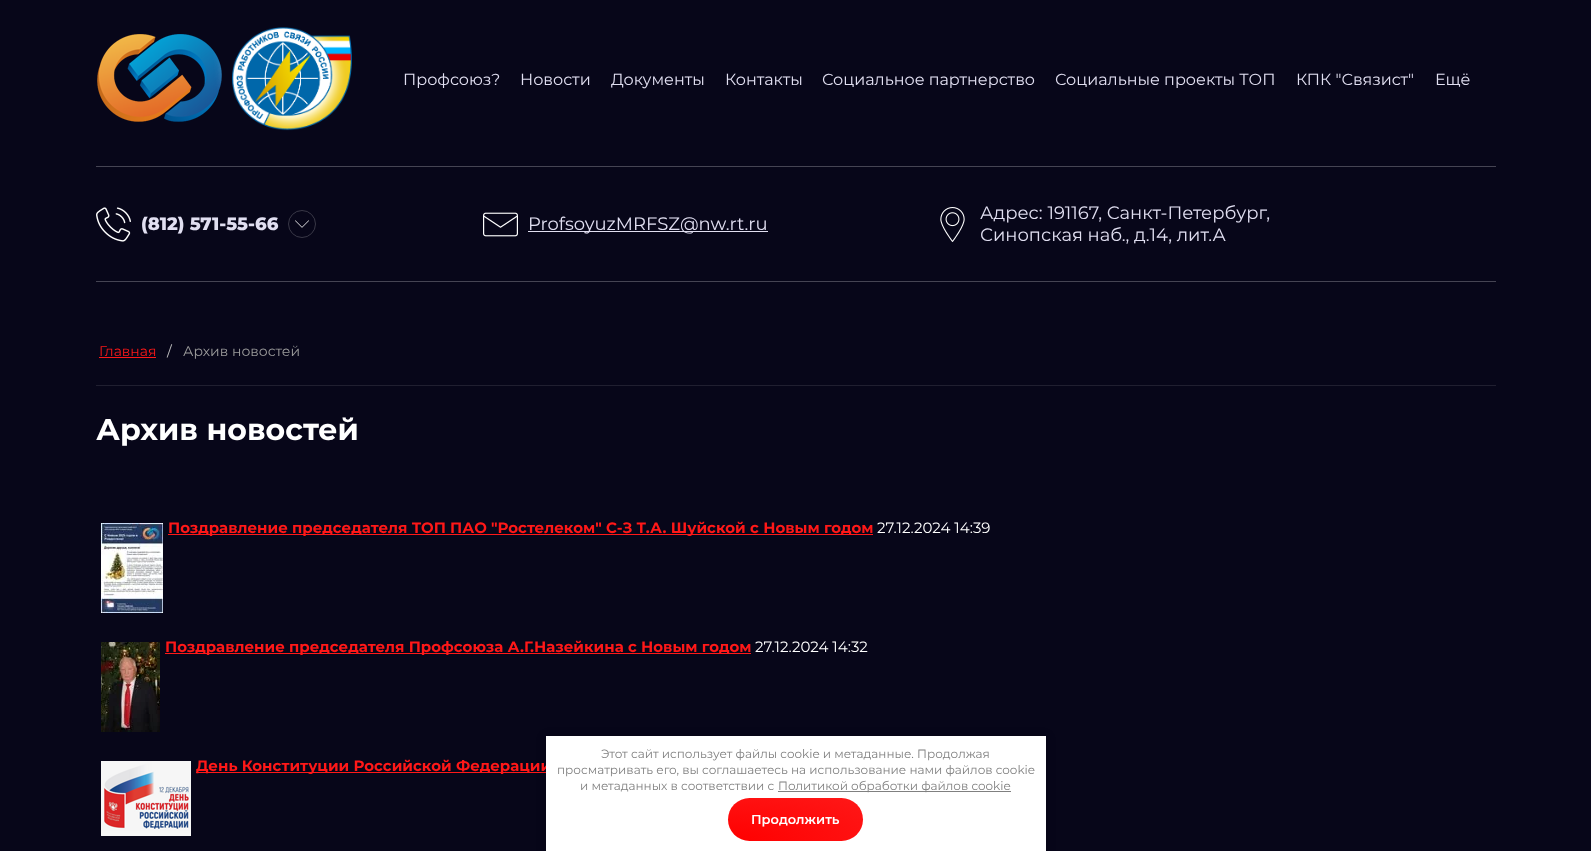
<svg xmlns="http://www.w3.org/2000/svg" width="1591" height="851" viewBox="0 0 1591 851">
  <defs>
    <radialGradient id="g1" gradientUnits="userSpaceOnUse" cx="0" cy="0" r="1" gradientTransform="matrix(191 0 0 61 728 841)"><stop offset="0" stop-color="#f00"/><stop offset="1" stop-color="#ff1818"/></radialGradient>
  </defs>
  <rect width="100%" height="100%" fill="#070619"/>
  <image x="97" y="34" width="125" height="88" href="img/1.png"/>
  <image x="232" y="27" width="120" height="104" href="img/2.png"/>
  <path d="M96 166h1400v1H96z" fill="#454453"/>
  <path d="M96 281h1400v1H96z" fill="#454453"/>
  <image x="96" y="207" width="35" height="35" href="img/3.png"/>
  <circle cx="302" cy="224" r="13.5" fill="none" stroke="#393847"/>
  <image x="295" y="220" width="14" height="8" href="img/4.png"/>
  <image x="483" y="212" width="35" height="25" href="img/5.png"/>
  <path d="M528 231h240v1H528z" fill="#e1dff1"/>
  <image x="940" y="207" width="25" height="35" href="img/6.png"/>
  <path d="M96 385h1400v1H96z" fill="#201f30"/>
  <path d="M99 357h57v1H99z" fill="#ff1818"/>
  <image x="101" y="523" width="62" height="90" href="img/7.png"/>
  <path d="M168 534h705v1H168z" fill="#ff1818"/>
  <image x="101" y="642" width="59" height="90" href="img/8.png"/>
  <path d="M165 653h586v1H165z" fill="#ff1818"/>
  <image x="101" y="761" width="90" height="75" href="img/9.png"/>
  <path d="M196 772h355v1H196z" fill="#ff1818"/>
  <path d="M546 737h500v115H546z" fill="#0000003b" filter="blur(5px)"/>
  <g font-family="Montserrat" font-size="16" fill="#e1dff1">
    <text x="403" y="85">Профсоюз?</text>
    <text x="520" y="85">Новости</text>
    <text x="611" y="85">Документы</text>
    <text x="725" y="85">Контакты</text>
    <text x="822" y="85">Социальное партнерство</text>
    <text x="1055" y="85">Социальные проекты ТОП</text>
    <text x="1296" y="85">КПК "Связист"</text>
    <text x="1435" y="85">Ещё</text>
  </g>
  <text x="141" y="230" font-family="Montserrat" font-size="18" font-weight="800" fill="#e1dff1">(812) 571-55-66</text>
  <g font-family="Montserrat" font-size="18" fill="#e1dff1">
    <text x="528" y="230">ProfsoyuzMRFSZ@nw.rt.ru</text>
    <text x="980" y="219">Адрес: 191167, Санкт-Петербург,</text>
    <text x="980" y="241">Синопская наб., д.14, лит.А</text>
  </g>
  <text x="99" y="356" font-family="Montserrat" font-size="14" fill="#ff1818">Главная</text>
  <text x="167" y="356" font-family="Montserrat" font-size="14" fill="#c0c0c0">/</text>
  <text x="183" y="356" font-family="Montserrat" font-size="14" fill="#9c9c9c">Архив новостей</text>
  <text x="96" y="440" font-family="Montserrat" font-size="30" font-weight="bold" fill="#fff">Архив новостей</text>
  <text x="168" y="533" font-family="Montserrat" font-size="15" font-weight="bold" fill="#ff1818">Поздравление председателя ТОП ПАО "Ростелеком" С-З Т.А. Шуйской с Новым годом</text>
  <text x="877" y="533" font-family="Montserrat" font-size="15" fill="#fff">27.12.2024 14:39</text>
  <text x="165" y="652" font-family="Montserrat" font-size="15" font-weight="bold" fill="#ff1818">Поздравление председателя Профсоюза А.Г.Назейкина с Новым годом</text>
  <text x="755" y="652" font-family="Montserrat" font-size="15" fill="#fff">27.12.2024 14:32</text>
  <text x="196" y="771" font-family="Montserrat" font-size="15" font-weight="bold" fill="#ff1818">День Конституции Российской Федерации</text>
  <path d="M546 736h500v115H546z" fill="#fff"/>
  <g font-family="Montserrat" font-size="12" fill="#808080">
    <text x="601" y="758">Этот сайт использует файлы cookie и метаданные. Продолжая</text>
    <text x="557" y="774">просматривать его, вы соглашаетесь на использование нами файлов cookie</text>
    <text x="580" y="790">и метаданных в соответствии с</text>
  </g>
  <path d="M778 791h233v1H778z" fill="#808080"/>
  <text x="778" y="790" font-family="Montserrat" font-size="12" fill="#808080">Политикой обработки файлов cookie</text>
  <rect x="728" y="798" width="135" height="43" rx="21.5" fill="url(#g1)"/>
  <text x="751" y="824" font-family="Montserrat" font-size="13" font-weight="600" fill="#fff">Продолжить</text>
</svg>
